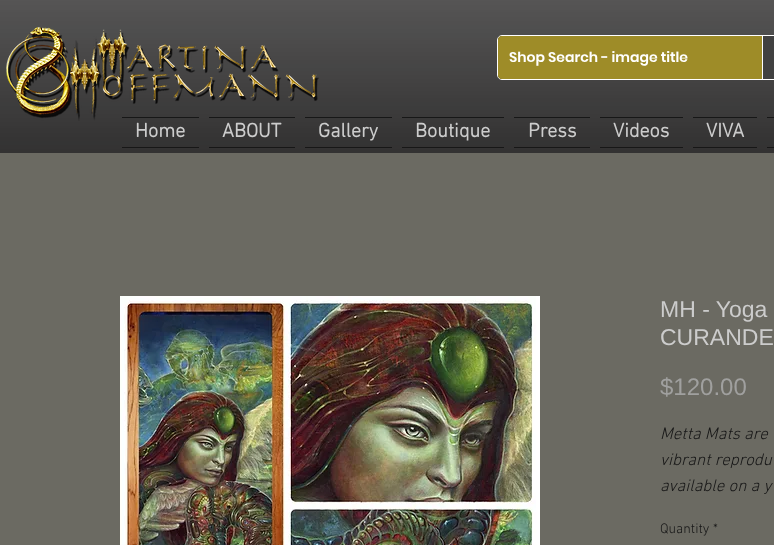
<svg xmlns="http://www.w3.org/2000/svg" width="774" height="545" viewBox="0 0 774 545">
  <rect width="100%" height="100%" fill="#6b6a62"/>
  <path d="M0 0h774v153H0z" fill="#1b1a1a"/>
  <image x="0" y="0" width="774" height="153" href="img/1.png"/>
  <image x="6" y="27" width="313" height="94" href="img/2.png"/>
  <rect x="497.5" y="35.5" width="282" height="44" rx="4.5" fill="none" stroke="#fff"/>
  <rect x="498" y="36" width="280" height="43" rx="4" fill="#9e8c28"/>
  <path d="M763 36h11v43H763z" fill="#414141"/>
  <path d="M762 36h1v43H762z" fill="#fff"/>
  <path d="M122 117h77v1H122z" fill="#171717"/>
  <path d="M122 147h77v1H122z" fill="#171717"/>
  <path d="M209 117h86v1H209z" fill="#171717"/>
  <path d="M209 147h86v1H209z" fill="#171717"/>
  <path d="M305 117h87v1H305z" fill="#171717"/>
  <path d="M305 147h87v1H305z" fill="#171717"/>
  <path d="M402 117h102v1H402z" fill="#171717"/>
  <path d="M402 147h102v1H402z" fill="#171717"/>
  <path d="M514 117h76v1H514z" fill="#171717"/>
  <path d="M514 147h76v1H514z" fill="#171717"/>
  <path d="M600 117h83v1H600z" fill="#171717"/>
  <path d="M600 147h83v1H600z" fill="#171717"/>
  <path d="M693 117h64v1H693z" fill="#171717"/>
  <path d="M693 147h64v1H693z" fill="#171717"/>
  <path d="M767 117h7v1H767z" fill="#171717"/>
  <path d="M767 147h7v1H767z" fill="#171717"/>
  <image x="120" y="296" width="420" height="249" href="img/3.png"/>
  <text x="509" y="62" font-family="Poppins" font-size="14" font-weight="600" fill="#fff">Shop Search - image title</text>
  <g font-family="'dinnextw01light'" font-size="20" font-weight="bold" fill="#ccc">
    <text x="135" y="137">Home</text>
    <text x="222" y="137">ABOUT</text>
    <text x="318" y="137">Gallery</text>
    <text x="415" y="137">Boutique</text>
    <text x="528" y="137">Press</text>
    <text x="613" y="137">Videos</text>
    <text x="706" y="137">VIVA</text>
  </g>
  <g font-family="Liberation Sans" font-size="23" fill="#ccc">
    <text x="660" y="317">MH - Yoga</text>
    <text x="660" y="345">CURANDE</text>
  </g>
  <text x="660" y="395" font-family="Liberation Sans" font-size="24" fill="#a0a09f">$120.00</text>
  <g font-family="'dinnextw01light'" font-size="17" font-weight="300" font-style="italic" fill="#171717">
    <text x="660" y="439">Metta Mats are</text>
    <text x="660" y="465">vibrant reprodu</text>
    <text x="660" y="491">available on a y</text>
  </g>
  <g font-family="'dinnextw01light'" font-size="14" font-weight="300" fill="#171717">
    <text x="660" y="533">Quantity</text>
    <text x="713" y="533">*</text>
  </g>
</svg>
